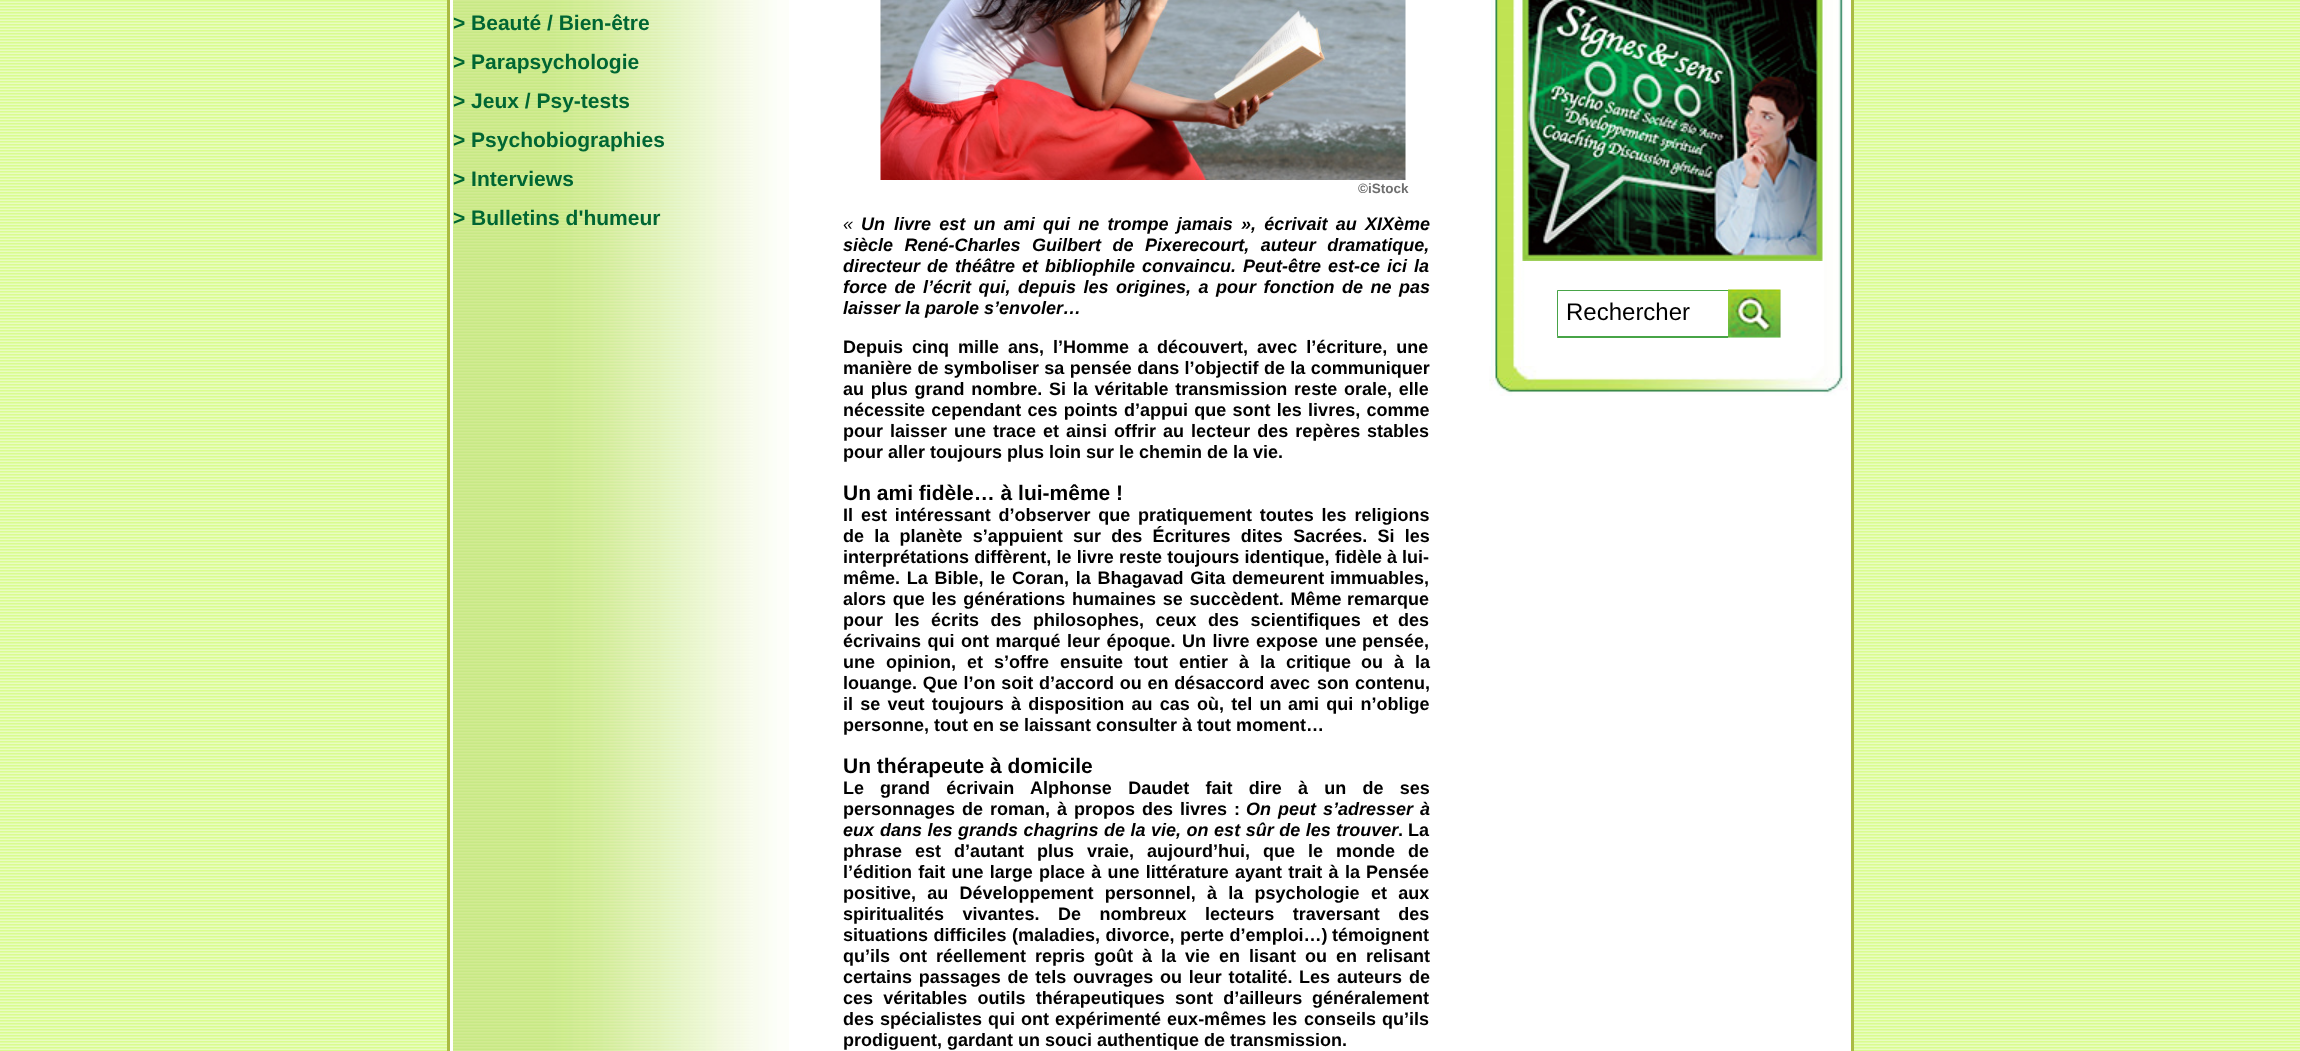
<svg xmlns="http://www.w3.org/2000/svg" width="2300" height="1051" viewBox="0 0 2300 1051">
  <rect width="100%" height="100%" fill="#fff"/>
  <image x="0" y="0" width="2300" height="1051" href="img/1.png"/>
  <path d="M448.5 -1.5h1404v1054H448.5z" fill="#fff" stroke="#ab4" stroke-width="3"/>
  <image x="453" y="0" width="336" height="1051" href="img/2.png"/>
  <image x="880" y="0" width="526" height="180" href="img/3.png"/>
  <image x="1491" y="0" width="354" height="366" href="img/4.png"/>
  <image x="1522" y="0" width="301" height="261" href="img/5.png"/>
  <path d="M1557 290H1728V291H1558Z" fill="#47a447"/>
  <path d="M1728 338H1557L1558 336H1728Z" fill="#47a447"/>
  <path d="M1557 338V290L1558 291V336Z" fill="#008000b8"/>
  <path d="M1728 290h53v48H1728z" fill="#efefef"/>
  <image x="1728" y="289" width="53" height="49" href="img/6.png"/>
  <image x="1489" y="366" width="359" height="30" href="img/7.png"/>
  <g font-family="Liberation Sans" font-size="21" font-weight="bold" fill="#063">
    <text x="453" y="30">&gt; Beauté / Bien-être</text>
    <text x="453" y="69">&gt; Parapsychologie</text>
    <text x="453" y="108">&gt; Jeux / Psy-tests</text>
    <text x="453" y="147">&gt; Psychobiographies</text>
    <text x="453" y="186">&gt; Interviews</text>
    <text x="453" y="225">&gt; Bulletins d'humeur</text>
  </g>
  <text x="1358" y="193" font-family="Liberation Sans" font-size="13.5" font-weight="bold" fill="#6f6f6f">©iStock</text>
  <text x="843" y="230" font-family="Liberation Sans" font-size="18" font-style="italic" fill="#000">«</text>
  <g font-family="Liberation Sans" font-size="18" font-weight="bold" font-style="italic" fill="#000">
    <text x="861" y="230">Un</text>
    <text x="894" y="230" word-spacing="3.25">livre est un ami qui ne trompe jamais », écrivait au XIXème</text>
    <text x="843" y="251" word-spacing="6.5">siècle René-Charles Guilbert de Pixerecourt, auteur dramatique,</text>
    <text x="843" y="272" word-spacing="2">directeur de théâtre et bibliophile convaincu. Peut-être est-ce</text>
    <text x="1387" y="272" word-spacing="2">ici la</text>
    <text x="843" y="293" word-spacing="2.5">force de l’écrit qui, depuis les origines, a pour fonction</text>
    <text x="1342" y="293" word-spacing="2.5">de ne pas</text>
    <text x="843" y="314">laisser la parole s’envoler…</text>
  </g>
  <g font-family="Liberation Sans" font-size="18" font-weight="bold" fill="#000">
    <text x="843" y="353">Depuis</text>
    <text x="912" y="353" word-spacing="4">cinq mille ans, l’Homme a découvert, avec l’écriture, une</text>
    <text x="843" y="374" word-spacing="0.4">manière de symboliser sa pensée dans l’objectif de la communiquer</text>
    <text x="843" y="395" word-spacing="1.75">au plus grand nombre. Si la véritable transmission reste orale, elle</text>
    <text x="843" y="416" word-spacing="1.25">nécessite cependant ces points d’appui que sont les livres, comme</text>
    <text x="843" y="437" word-spacing="2">pour laisser une trace et ainsi offrir au lecteur des repères</text>
    <text x="1367" y="437">stables</text>
    <text x="843" y="458">pour aller toujours plus loin sur le chemin de la vie.</text>
  </g>
  <text x="843" y="500" font-family="Liberation Sans" font-size="21" font-weight="bold" fill="#000">Un ami fidèle… à lui-même !</text>
  <g font-family="Liberation Sans" font-size="18" font-weight="bold" fill="#000">
    <text x="843" y="521">Il</text>
    <text x="861" y="521" word-spacing="2.75">est intéressant d’observer que pratiquement toutes les religions</text>
    <text x="843" y="542" word-spacing="5.25">de la planète s’appuient sur des Écritures dites Sacrées. Si les</text>
    <text x="843" y="563" word-spacing="0.25">interprétations diffèrent, le livre reste toujours identique,</text>
    <text x="1335" y="563">fidèle à lui-</text>
    <text x="843" y="584" word-spacing="1.75">même. La Bible, le Coran, la Bhagavad Gita demeurent</text>
    <text x="1330" y="584">immuables,</text>
    <text x="843" y="605" word-spacing="1.75">alors que les générations humaines se succèdent. Même</text>
    <text x="1347" y="605">remarque</text>
    <text x="843" y="626" word-spacing="6.5">pour les écrits des philosophes, ceux des scientifiques et</text>
    <text x="1398" y="626">des</text>
    <text x="843" y="647" word-spacing="1.5">écrivains qui ont marqué leur époque. Un livre expose une</text>
    <text x="1362" y="647">pensée,</text>
    <text x="843" y="668" word-spacing="6">une opinion, et s’offre ensuite tout entier à la critique</text>
    <text x="1361" y="668" word-spacing="6">ou à la</text>
    <text x="843" y="689" word-spacing="0.75">louange. Que l’on soit d’accord ou en désaccord avec</text>
    <text x="1317" y="689" word-spacing="1">son contenu,</text>
    <text x="843" y="710" word-spacing="2.25">il se veut toujours à disposition au cas où, tel un</text>
    <text x="1288" y="710" word-spacing="2.25">ami qui n’oblige</text>
    <text x="843" y="731">personne, tout en se laissant consulter à tout moment…</text>
  </g>
  <text x="843" y="773" font-family="Liberation Sans" font-size="21" font-weight="bold" fill="#000">Un thérapeute à domicile</text>
  <g font-family="Liberation Sans" font-size="18" font-weight="bold" fill="#000">
    <text x="843" y="794">Le</text>
    <text x="880" y="794" word-spacing="11.25">grand écrivain Alphonse Daudet fait dire à un de ses</text>
    <text x="843" y="815" word-spacing="2">personnages de</text>
    <text x="990" y="815" word-spacing="2">roman, à propos des livres :</text>
  </g>
  <g font-family="Liberation Sans" font-size="18" font-weight="bold" font-style="italic" fill="#000">
    <text x="1246" y="815" word-spacing="2">On peut s’adresser à</text>
    <text x="843" y="836">eux</text>
    <text x="880" y="836" word-spacing="0.5">dans les grands chagrins de la vie, on est sûr de les trouver</text>
  </g>
  <g font-family="Liberation Sans" font-size="18" font-weight="bold" fill="#000">
    <text x="1398" y="836">.</text>
    <text x="1408" y="836">La</text>
    <text x="843" y="857" word-spacing="8">phrase est d’autant plus vraie, aujourd’hui, que le monde de</text>
    <text x="843" y="878" word-spacing="1.25">l’édition fait une large place à une littérature ayant trait à</text>
    <text x="1345" y="878" word-spacing="1">la Pensée</text>
    <text x="843" y="899" word-spacing="6.25">positive, au Développement personnel, à la psychologie</text>
    <text x="1371" y="899" word-spacing="6.25">et aux</text>
    <text x="843" y="920" word-spacing="13.5">spiritualités vivantes. De nombreux lecteurs traversant des</text>
    <text x="843" y="941" word-spacing="0.5">situations difficiles (maladies, divorce, perte d’emploi…)</text>
    <text x="1332" y="941">témoignent</text>
    <text x="843" y="962" word-spacing="4">qu’ils ont réellement repris goût à la vie en lisant</text>
    <text x="1305" y="962" word-spacing="4">ou en relisant</text>
    <text x="843" y="983" word-spacing="1.75">certains passages de tels ouvrages ou leur totalité.</text>
    <text x="1299" y="983" word-spacing="2">Les auteurs de</text>
    <text x="843" y="1004" word-spacing="5.25">ces véritables outils thérapeutiques sont d’ailleurs</text>
    <text x="1312" y="1004">généralement</text>
    <text x="843" y="1025" word-spacing="1">des spécialistes qui ont expérimenté eux-mêmes les</text>
    <text x="1304" y="1025" word-spacing="1">conseils qu’ils</text>
    <text x="843" y="1046">prodiguent, gardant un souci authentique de transmission.</text>
  </g>
  <text x="1566" y="320" font-family="Liberation Sans" font-size="24" fill="#000">Rechercher</text>
</svg>
